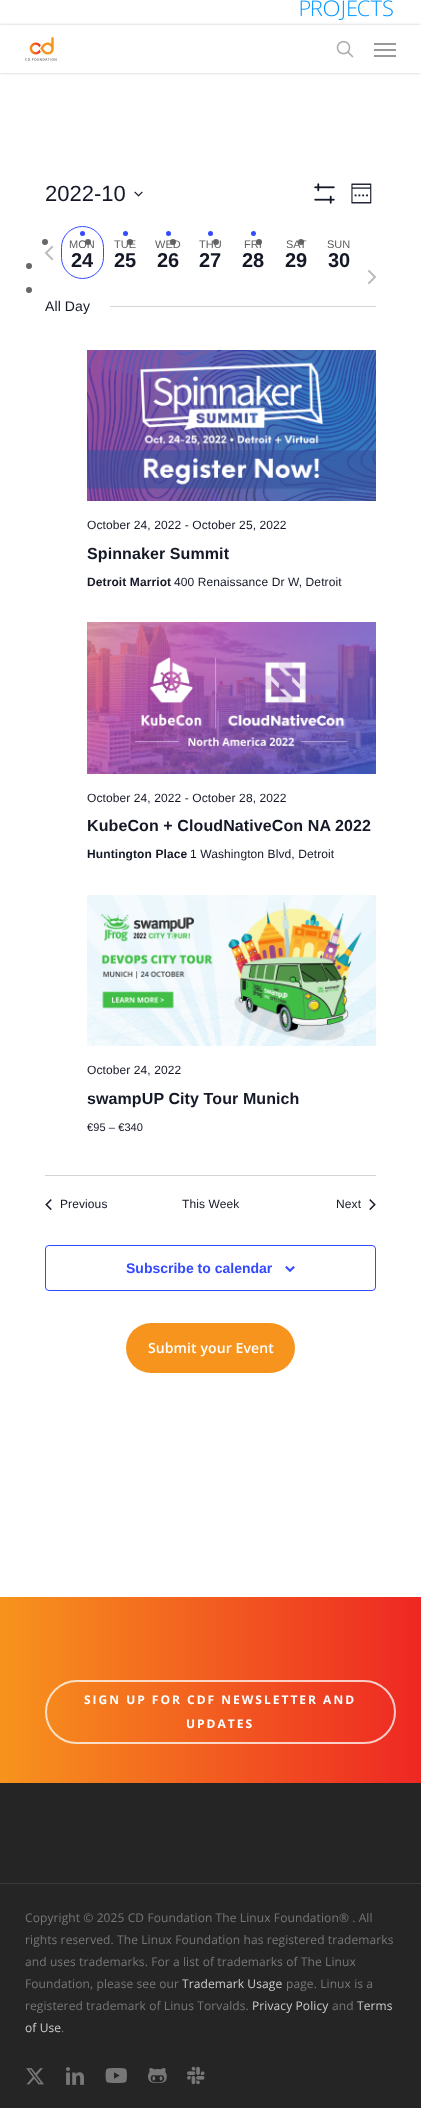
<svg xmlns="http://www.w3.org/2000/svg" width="421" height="2108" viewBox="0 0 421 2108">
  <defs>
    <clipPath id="clip1"><path d="M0 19H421V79H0ZM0 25H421V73H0Z" clip-rule="evenodd"/></clipPath>
    <linearGradient id="g1" gradientUnits="userSpaceOnUse" x1="0" y1="1690" x2="421" y2="1690"><stop offset="0" stop-color="#f7941d"/><stop offset="1" stop-color="#ee2723"/></linearGradient>
  </defs>
  <rect width="100%" height="100%" fill="#fff"/>
  <image x="300" y="0" width="93" height="20" href="img/1.png"/>
  <g clip-path="url(#clip1)">
    <path d="M0 25h421v48H0z" fill="#00000038" filter="blur(1.5px)"/>
  </g>
  <image x="25" y="37" width="32" height="24" href="img/2.png"/>
  <image x="336" y="40" width="18" height="18" href="img/3.png"/>
  <path d="M374 43h22v2H374z" fill="#999"/>
  <path d="M374 55h22v2H374z" fill="#999"/>
  <path d="M374 49h22v2H374z" fill="#999"/>
  <image x="134" y="191" width="9" height="6" href="img/4.png"/>
  <image x="314" y="183" width="21" height="21" href="img/5.png"/>
  <image x="351" y="183" width="21" height="21" href="img/6.png"/>
  <circle cx="45" cy="242" r="3" fill="#676767"/>
  <circle cx="88" cy="242" r="3" fill="#676767"/>
  <rect x="61.5" y="226.5" width="42" height="52" rx="21" fill="none" stroke="#334aff"/>
  <circle cx="82.5" cy="233.5" r="2.5" fill="#334aff"/>
  <circle cx="125.5" cy="233.5" r="2.5" fill="#334aff"/>
  <circle cx="130" cy="242" r="3" fill="#676767"/>
  <circle cx="168.5" cy="233.5" r="2.5" fill="#334aff"/>
  <circle cx="173" cy="242" r="3" fill="#676767"/>
  <circle cx="210.5" cy="233.5" r="2.5" fill="#334aff"/>
  <circle cx="216" cy="242" r="3" fill="#676767"/>
  <circle cx="253.5" cy="233.5" r="2.5" fill="#334aff"/>
  <circle cx="259" cy="242" r="3" fill="#676767"/>
  <circle cx="301" cy="242" r="3" fill="#676767"/>
  <image x="44" y="246" width="10" height="15" href="img/7.png"/>
  <circle cx="29" cy="266" r="3" fill="#676767"/>
  <image x="367" y="270" width="10" height="15" href="img/8.png"/>
  <circle cx="29" cy="290" r="3" fill="#676767"/>
  <path d="M110 306h266v1H110z" fill="#d5d5d5"/>
  <image x="87" y="350" width="289" height="151" href="img/9.png"/>
  <image x="87" y="622" width="289" height="152" href="img/10.png"/>
  <image x="87" y="895" width="289" height="151" href="img/11.png"/>
  <path d="M45 1175h331v1H45z" fill="#d5d5d5"/>
  <image x="45" y="1199" width="7" height="11" href="img/12.png"/>
  <image x="369" y="1199" width="7" height="11" href="img/13.png"/>
  <rect x="45.5" y="1245.5" width="330" height="45" rx="3.5" fill="none" stroke="#334aff"/>
  <image x="285" y="1266" width="10" height="6" href="img/14.png"/>
  <rect x="126" y="1323" width="169" height="50" rx="25" fill="#f7941d"/>
  <path d="M0 1783h421v325H0z" fill="#252525"/>
  <path d="M0 1597h421v186H0z" fill="url(#g1)"/>
  <rect x="46" y="1681" width="349" height="62" rx="31" fill="none" stroke="#ffffffbf" stroke-width="2"/>
  <path d="M0 1883h421v1H0z" fill="#3b3b3b"/>
  <image x="26" y="2068" width="18" height="17" href="img/15.png"/>
  <image x="66" y="2067" width="18" height="18" href="img/16.png"/>
  <image x="105" y="2068" width="22" height="15" href="img/17.png"/>
  <image x="148" y="2068" width="19" height="15" href="img/18.png"/>
  <image x="187" y="2066" width="18" height="19" href="img/19.png"/>
  <text x="45" y="201" font-family="Liberation Sans" font-size="22" fill="#141827">2022-10</text>
  <text x="69" y="248" font-family="Liberation Sans" font-size="11" fill="#5d5d5d">MON</text>
  <text x="71" y="267" font-family="Liberation Sans" font-size="20" font-weight="bold" fill="#141827">24</text>
  <text x="114" y="248" font-family="Liberation Sans" font-size="11" fill="#5d5d5d">TUE</text>
  <text x="114" y="267" font-family="Liberation Sans" font-size="20" font-weight="bold" fill="#141827">25</text>
  <text x="155" y="248" font-family="Liberation Sans" font-size="11" fill="#5d5d5d">WED</text>
  <text x="157" y="267" font-family="Liberation Sans" font-size="20" font-weight="bold" fill="#141827">26</text>
  <text x="199" y="248" font-family="Liberation Sans" font-size="11" fill="#5d5d5d">THU</text>
  <text x="199" y="267" font-family="Liberation Sans" font-size="20" font-weight="bold" fill="#141827">27</text>
  <text x="244" y="248" font-family="Liberation Sans" font-size="11" fill="#5d5d5d">FRI</text>
  <text x="242" y="267" font-family="Liberation Sans" font-size="20" font-weight="bold" fill="#141827">28</text>
  <text x="286" y="248" font-family="Liberation Sans" font-size="11" fill="#5d5d5d">SAT</text>
  <text x="285" y="267" font-family="Liberation Sans" font-size="20" font-weight="bold" fill="#141827">29</text>
  <text x="327" y="248" font-family="Liberation Sans" font-size="11" fill="#5d5d5d">SUN</text>
  <text x="328" y="267" font-family="Liberation Sans" font-size="20" font-weight="bold" fill="#141827">30</text>
  <text x="45" y="311" font-family="Liberation Sans" font-size="14" letter-spacing="0.1" fill="#141827">All Day</text>
  <text x="87" y="529" font-family="Liberation Sans" font-size="12" letter-spacing="0.1" fill="#141827">October 24, 2022 - October 25, 2022</text>
  <text x="87" y="559" font-family="Liberation Sans" font-size="16" font-weight="bold" letter-spacing="0.1" fill="#141827">Spinnaker Summit</text>
  <text x="87" y="586" font-family="Liberation Sans" font-size="12" font-weight="bold" letter-spacing="0.1" fill="#141827">Detroit Marriot</text>
  <g font-family="Liberation Sans" font-size="12" letter-spacing="0.1" fill="#141827">
    <text x="174" y="586">400 Renaissance Dr W, Detroit</text>
    <text x="87" y="802">October 24, 2022 - October 28, 2022</text>
  </g>
  <text x="87" y="831" font-family="Liberation Sans" font-size="16" font-weight="bold" letter-spacing="0.1" fill="#141827">KubeCon + CloudNativeCon NA 2022</text>
  <text x="87" y="858" font-family="Liberation Sans" font-size="12" font-weight="bold" letter-spacing="0.1" fill="#141827">Huntington Place</text>
  <g font-family="Liberation Sans" font-size="12" letter-spacing="0.1" fill="#141827">
    <text x="190" y="858">1 Washington Blvd, Detroit</text>
    <text x="87" y="1074">October 24, 2022</text>
  </g>
  <text x="87" y="1104" font-family="Liberation Sans" font-size="16" font-weight="bold" letter-spacing="0.1" fill="#141827">swampUP City Tour Munich</text>
  <text x="87" y="1131" font-family="Liberation Sans" font-size="11" letter-spacing="0.1" fill="#141827">€95 – €340</text>
  <g font-family="Liberation Sans" font-size="12" letter-spacing="0.1" fill="#141827">
    <text x="60" y="1208">Previous</text>
    <text x="182" y="1208">This Week</text>
    <text x="336" y="1208">Next</text>
  </g>
  <text x="126" y="1273" font-family="Liberation Sans" font-size="14" font-weight="bold" fill="#334aff">Subscribe to calendar</text>
  <text x="148" y="1353" font-family="Open Sans" font-size="14" font-weight="600" letter-spacing="0.1" fill="#fff">Submit your Event</text>
  <g font-family="Open Sans" font-size="12" font-weight="bold" letter-spacing="2" fill="#fff">
    <text x="84" y="1704">SIGN UP FOR CDF NEWSLETTER AND</text>
    <text x="186" y="1728">UPDATES</text>
  </g>
  <g font-family="Open Sans" font-size="12" letter-spacing="0.1" fill="#777">
    <text x="25" y="1922">Copyright © 2025 CD Foundation The Linux Foundation® . All</text>
    <text x="25" y="1944">rights reserved. The Linux Foundation has registered trademarks</text>
    <text x="25" y="1966">and uses trademarks. For a list of trademarks of The Linux</text>
    <text x="25" y="1988">Foundation, please see our</text>
  </g>
  <text x="182" y="1988" font-family="Open Sans" font-size="12" letter-spacing="0.1" fill="#ccc">Trademark Usage</text>
  <g font-family="Open Sans" font-size="12" letter-spacing="0.1" fill="#777">
    <text x="286" y="1988">page. Linux is a</text>
    <text x="25" y="2010">registered trademark of Linus Torvalds.</text>
  </g>
  <text x="252" y="2010" font-family="Open Sans" font-size="12" letter-spacing="0.1" fill="#ccc">Privacy Policy</text>
  <text x="332" y="2010" font-family="Open Sans" font-size="12" letter-spacing="0.1" fill="#777">and</text>
  <g font-family="Open Sans" font-size="12" letter-spacing="0.1" fill="#ccc">
    <text x="357" y="2010">Terms</text>
    <text x="25" y="2032">of Use</text>
  </g>
  <text x="61" y="2032" font-family="Open Sans" font-size="12" letter-spacing="0.1" fill="#777">.</text>
</svg>
